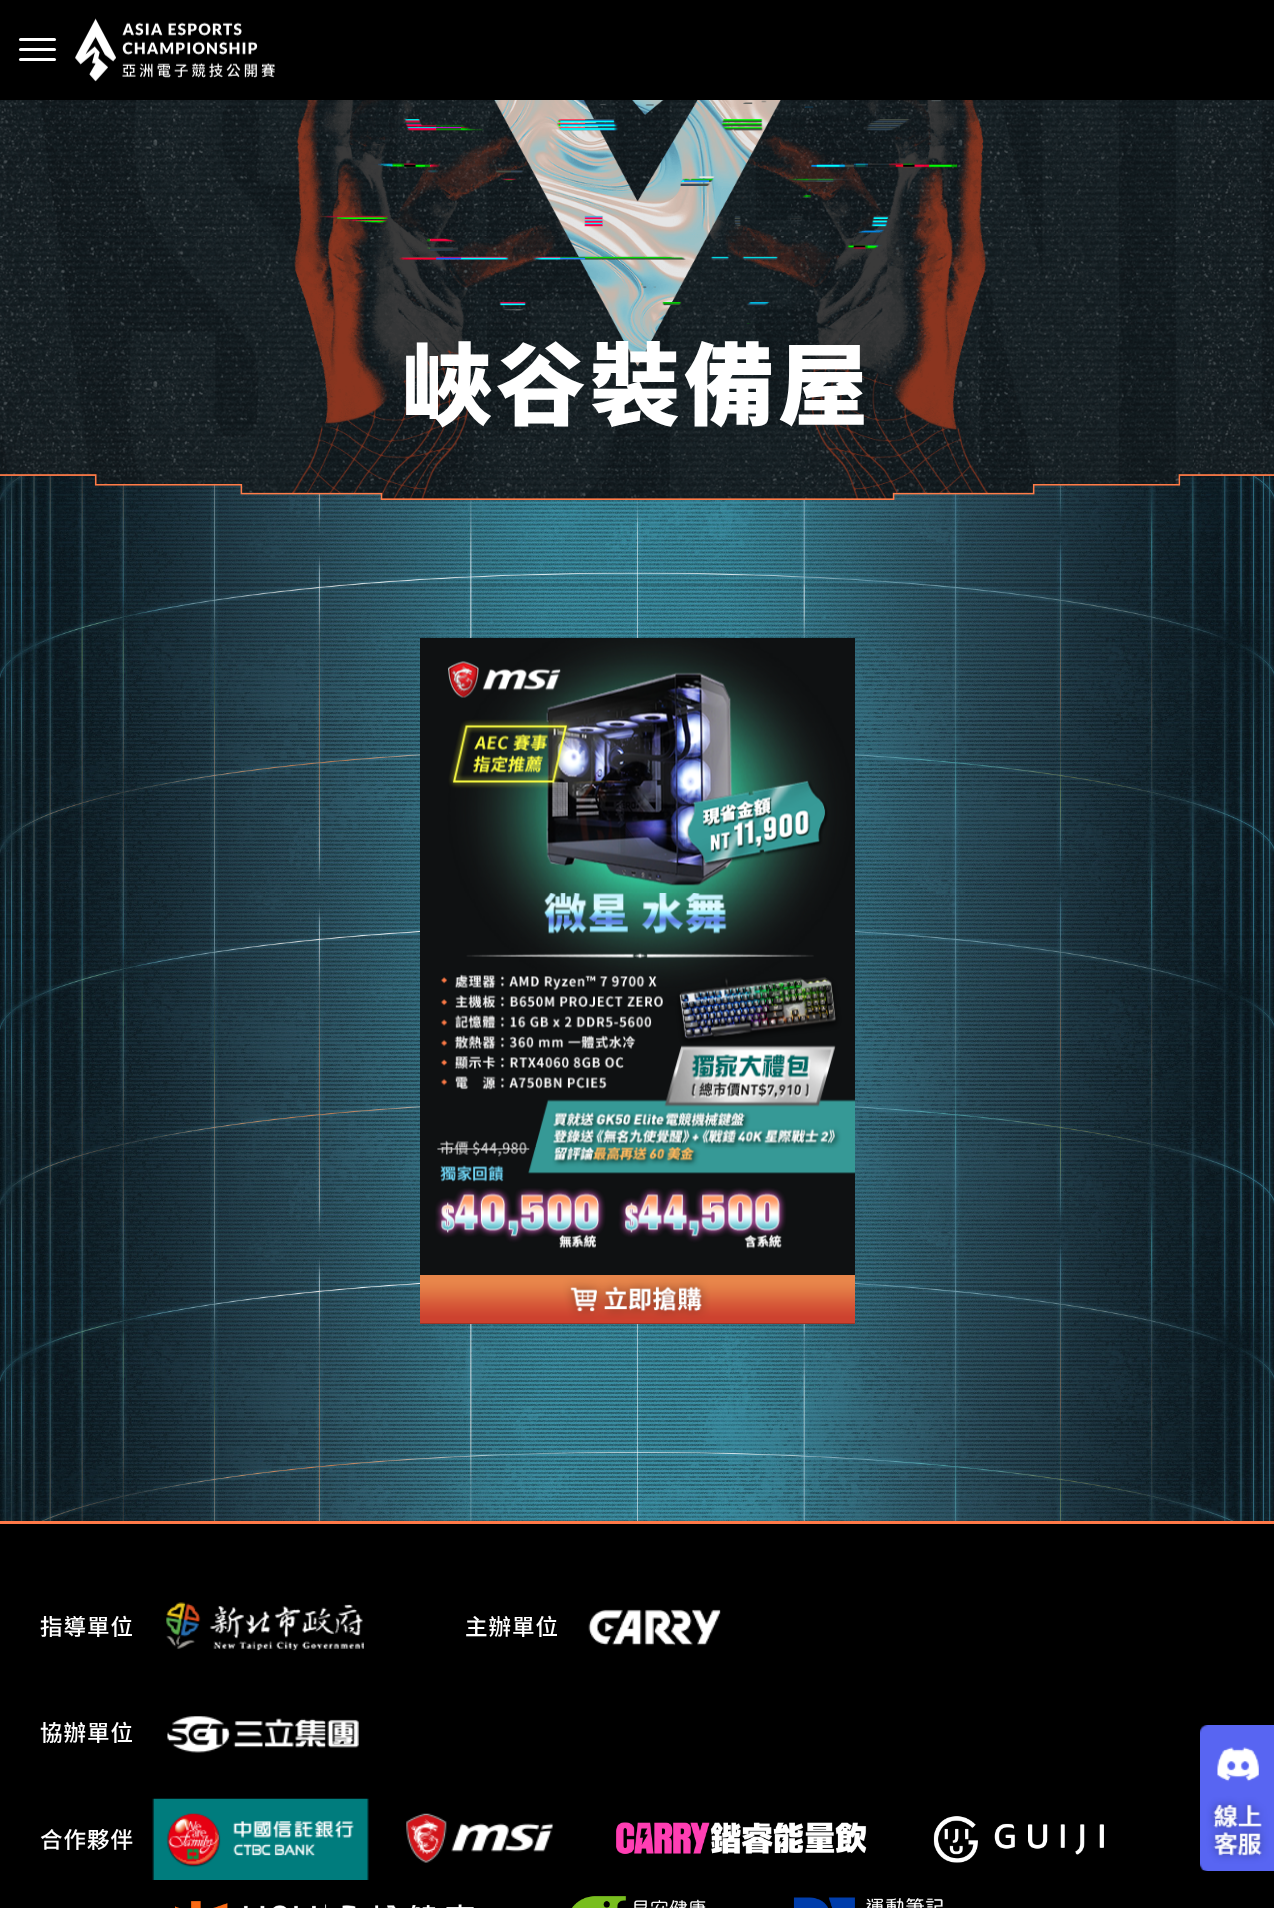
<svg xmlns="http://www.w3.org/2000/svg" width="1274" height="1908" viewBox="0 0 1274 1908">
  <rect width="100%" height="100%" fill="#fff"/>
  <path d="M0 0h1274v100H0z" fill="#000"/>
  <rect x="19" y="48" width="37" height="3" rx="1.5" fill="#fff"/>
  <rect x="19" y="38" width="37" height="3" rx="1.5" fill="#fff"/>
  <rect x="19" y="58" width="37" height="3" rx="1.5" fill="#fff"/>
  <image x="75" y="18" width="200" height="64" href="img/1.png"/>
  <image x="0" y="475" width="1274" height="1046" href="img/2.png"/>
  <image x="0" y="100" width="1274" height="400" href="img/3.png"/>
  <path d="M420 638h435v686H420z" fill="#0f1112"/>
  <image x="435" y="638" width="420" height="611" href="img/4.png"/>
  <image x="420" y="1275" width="435" height="49" href="img/5.png"/>
  <path d="M0 1524h1274v384H0z" fill="#000"/>
  <path d="M0 1521h1274v3H0z" fill="#ff7948"/>
  <image x="166" y="1602" width="198" height="49" href="img/6.png"/>
  <image x="588" y="1609" width="133" height="37" href="img/7.png"/>
  <image x="167" y="1716" width="192" height="37" href="img/8.png"/>
  <image x="152" y="1798" width="217" height="82" href="img/9.png"/>
  <image x="406" y="1813" width="148" height="50" href="img/10.png"/>
  <image x="616" y="1822" width="251" height="32" href="img/11.png"/>
  <image x="933" y="1816" width="171" height="47" href="img/12.png"/>
  <image x="175" y="1901" width="299" height="7" href="img/13.png"/>
  <image x="572" y="1896" width="134" height="12" href="img/14.png"/>
  <image x="793" y="1897" width="150" height="11" href="img/15.png"/>
  <image x="1200" y="1725" width="74" height="146" href="img/16.png"/>
  <text x="402" y="418" font-family="Noto Sans TC" font-size="90" font-weight="900" letter-spacing="4" fill="#fff">峽谷裝備屋</text>
  <g font-family="Noto Sans TC" font-size="22.5" font-weight="500" letter-spacing="1" fill="#fff">
    <text x="40" y="1635">指導單位</text>
    <text x="465" y="1635">主辦單位</text>
    <text x="40" y="1741">協辦單位</text>
    <text x="40" y="1848">合作夥伴</text>
  </g>
</svg>
